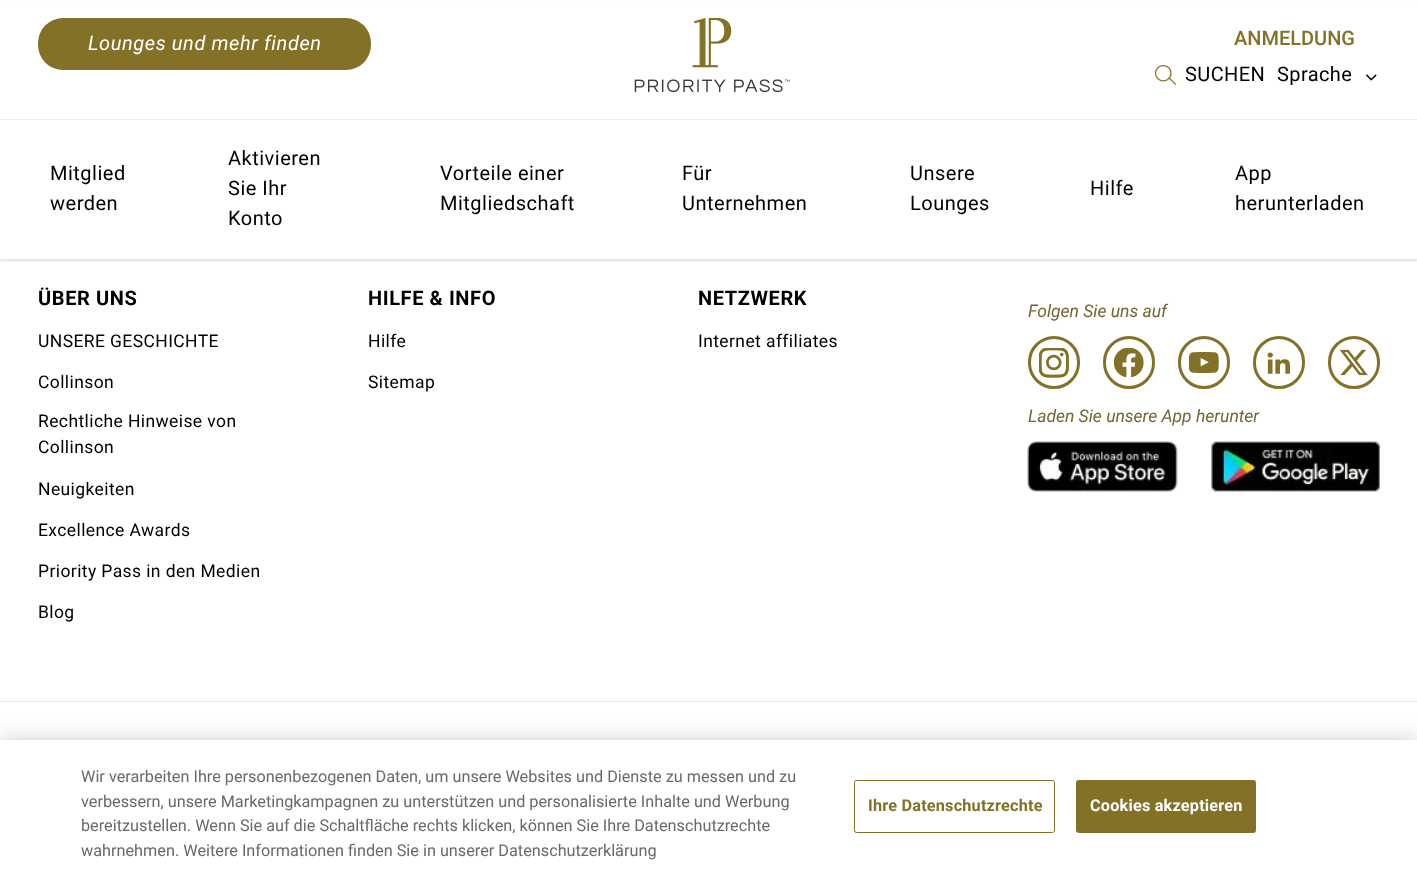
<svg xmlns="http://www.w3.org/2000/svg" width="1417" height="874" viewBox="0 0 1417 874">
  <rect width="100%" height="100%" fill="#fff"/>
  <path d="M0 3h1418v258H0z" fill="#e3e1e1" filter="blur(1px)"/>
  <path d="M0 2h1417v257H0z" fill="#fff"/>
  <path d="M0 119h1417v1H0z" fill="#eee"/>
  <rect x="38" y="18" width="333" height="52" rx="25" fill="#827127"/>
  <image x="634" y="18" width="156" height="75" href="img/1.png"/>
  <image x="1155" y="65" width="22" height="20" href="img/2.png"/>
  <image x="1366" y="74" width="11" height="7" href="img/3.png"/>
  <path d="M0 701h1417v1H0z" fill="#e5e7eb"/>
  <rect x="1029.5" y="337.5" width="49" height="50" rx="24.5" fill="none" stroke="#827127" stroke-width="3"/>
  <image x="1039" y="348" width="30" height="30" href="img/4.png"/>
  <rect x="1104.5" y="337.5" width="49" height="50" rx="24.5" fill="none" stroke="#827127" stroke-width="3"/>
  <image x="1114" y="348" width="30" height="30" href="img/5.png"/>
  <rect x="1179.5" y="337.5" width="49" height="50" rx="24.5" fill="none" stroke="#827127" stroke-width="3"/>
  <image x="1189" y="351" width="30" height="23" href="img/6.png"/>
  <rect x="1254.5" y="337.5" width="49" height="50" rx="24.5" fill="none" stroke="#827127" stroke-width="3"/>
  <image x="1267" y="352" width="23" height="22" href="img/7.png"/>
  <rect x="1329.5" y="337.5" width="49" height="50" rx="24.5" fill="none" stroke="#827127" stroke-width="3"/>
  <image x="1339" y="349" width="29" height="27" href="img/8.png"/>
  <image x="1027" y="441" width="151" height="51" href="img/9.png"/>
  <image x="1211" y="441" width="169" height="51" href="img/10.png"/>
  <path d="M0 740h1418v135H0z" fill="#00000033" filter="blur(11px)"/>
  <path d="M0 740h1417v134H0z" fill="#fff"/>
  <rect x="854.5" y="780.5" width="200" height="52" rx="2" fill="none" stroke="#827127"/>
  <rect x="1076.5" y="780.5" width="179" height="52" rx="2" fill="#827127" stroke="#827127"/>
  <text x="88" y="50" font-family="Roboto" font-size="20" font-style="italic" letter-spacing="0.6" fill="#fff">Lounges und mehr finden</text>
  <text x="1234" y="45" font-family="Roboto" font-size="20" font-weight="500" fill="#827127">ANMELDUNG</text>
  <g font-family="Roboto" font-size="20" letter-spacing="0.4" fill="#000">
    <text x="1185" y="81">SUCHEN</text>
    <text x="1277" y="81">Sprache</text>
  </g>
  <g font-family="Roboto" font-size="20" letter-spacing="0.5" fill="#000">
    <text x="50" y="180">Mitglied</text>
    <text x="50" y="210">werden</text>
    <text x="228" y="165">Aktivieren</text>
    <text x="228" y="195">Sie Ihr</text>
    <text x="228" y="225">Konto</text>
    <text x="440" y="180">Vorteile einer</text>
    <text x="440" y="210">Mitgliedschaft</text>
    <text x="682" y="180">Für</text>
    <text x="682" y="210">Unternehmen</text>
    <text x="910" y="180">Unsere</text>
    <text x="910" y="210">Lounges</text>
    <text x="1090" y="195">Hilfe</text>
    <text x="1235" y="180">App</text>
    <text x="1235" y="210">herunterladen</text>
  </g>
  <text x="38" y="305" font-family="Roboto" font-size="20" font-weight="bold" letter-spacing="0.6" fill="#000">ÜBER UNS</text>
  <g font-family="Roboto" font-size="17.5" letter-spacing="0.4" fill="#000">
    <text x="38" y="347">UNSERE GESCHICHTE</text>
    <text x="38" y="388">Collinson</text>
    <text x="38" y="427">Rechtliche Hinweise von</text>
    <text x="38" y="453">Collinson</text>
    <text x="38" y="495">Neuigkeiten</text>
    <text x="38" y="536">Excellence Awards</text>
    <text x="38" y="577">Priority Pass in den Medien</text>
    <text x="38" y="618">Blog</text>
  </g>
  <text x="368" y="305" font-family="Roboto" font-size="20" font-weight="bold" letter-spacing="0.6" fill="#000">HILFE &amp; INFO</text>
  <g font-family="Roboto" font-size="17.5" letter-spacing="0.4" fill="#000">
    <text x="368" y="347">Hilfe</text>
    <text x="368" y="388">Sitemap</text>
  </g>
  <text x="698" y="305" font-family="Roboto" font-size="20" font-weight="bold" letter-spacing="0.6" fill="#000">NETZWERK</text>
  <text x="698" y="347" font-family="Roboto" font-size="17.5" letter-spacing="0.4" fill="#000">Internet affiliates</text>
  <g font-family="Roboto" font-size="17.5" font-style="italic" fill="#746632">
    <text x="1028" y="317">Folgen Sie uns auf</text>
    <text x="1028" y="422">Laden Sie unsere App herunter</text>
  </g>
  <g font-family="Roboto" font-size="16.25" fill="#696969">
    <text x="81" y="782">Wir verarbeiten Ihre personenbezogenen Daten, um unsere Websites und Dienste zu messen und zu</text>
    <text x="81" y="807">verbessern, unsere Marketingkampagnen zu unterstützen und personalisierte Inhalte und Werbung</text>
    <text x="81" y="831">bereitzustellen. Wenn Sie auf die Schaltfläche rechts klicken, können Sie Ihre Datenschutzrechte</text>
    <text x="81" y="856">wahrnehmen. Weitere Informationen finden Sie in unserer Datenschutzerklärung</text>
  </g>
  <text x="868" y="811" font-family="Roboto" font-size="16.25" font-weight="bold" letter-spacing="0.2" fill="#827127">Ihre Datenschutzrechte</text>
  <text x="1090" y="811" font-family="Roboto" font-size="16.25" font-weight="bold" letter-spacing="0.2" fill="#fff">Cookies akzeptieren</text>
</svg>
